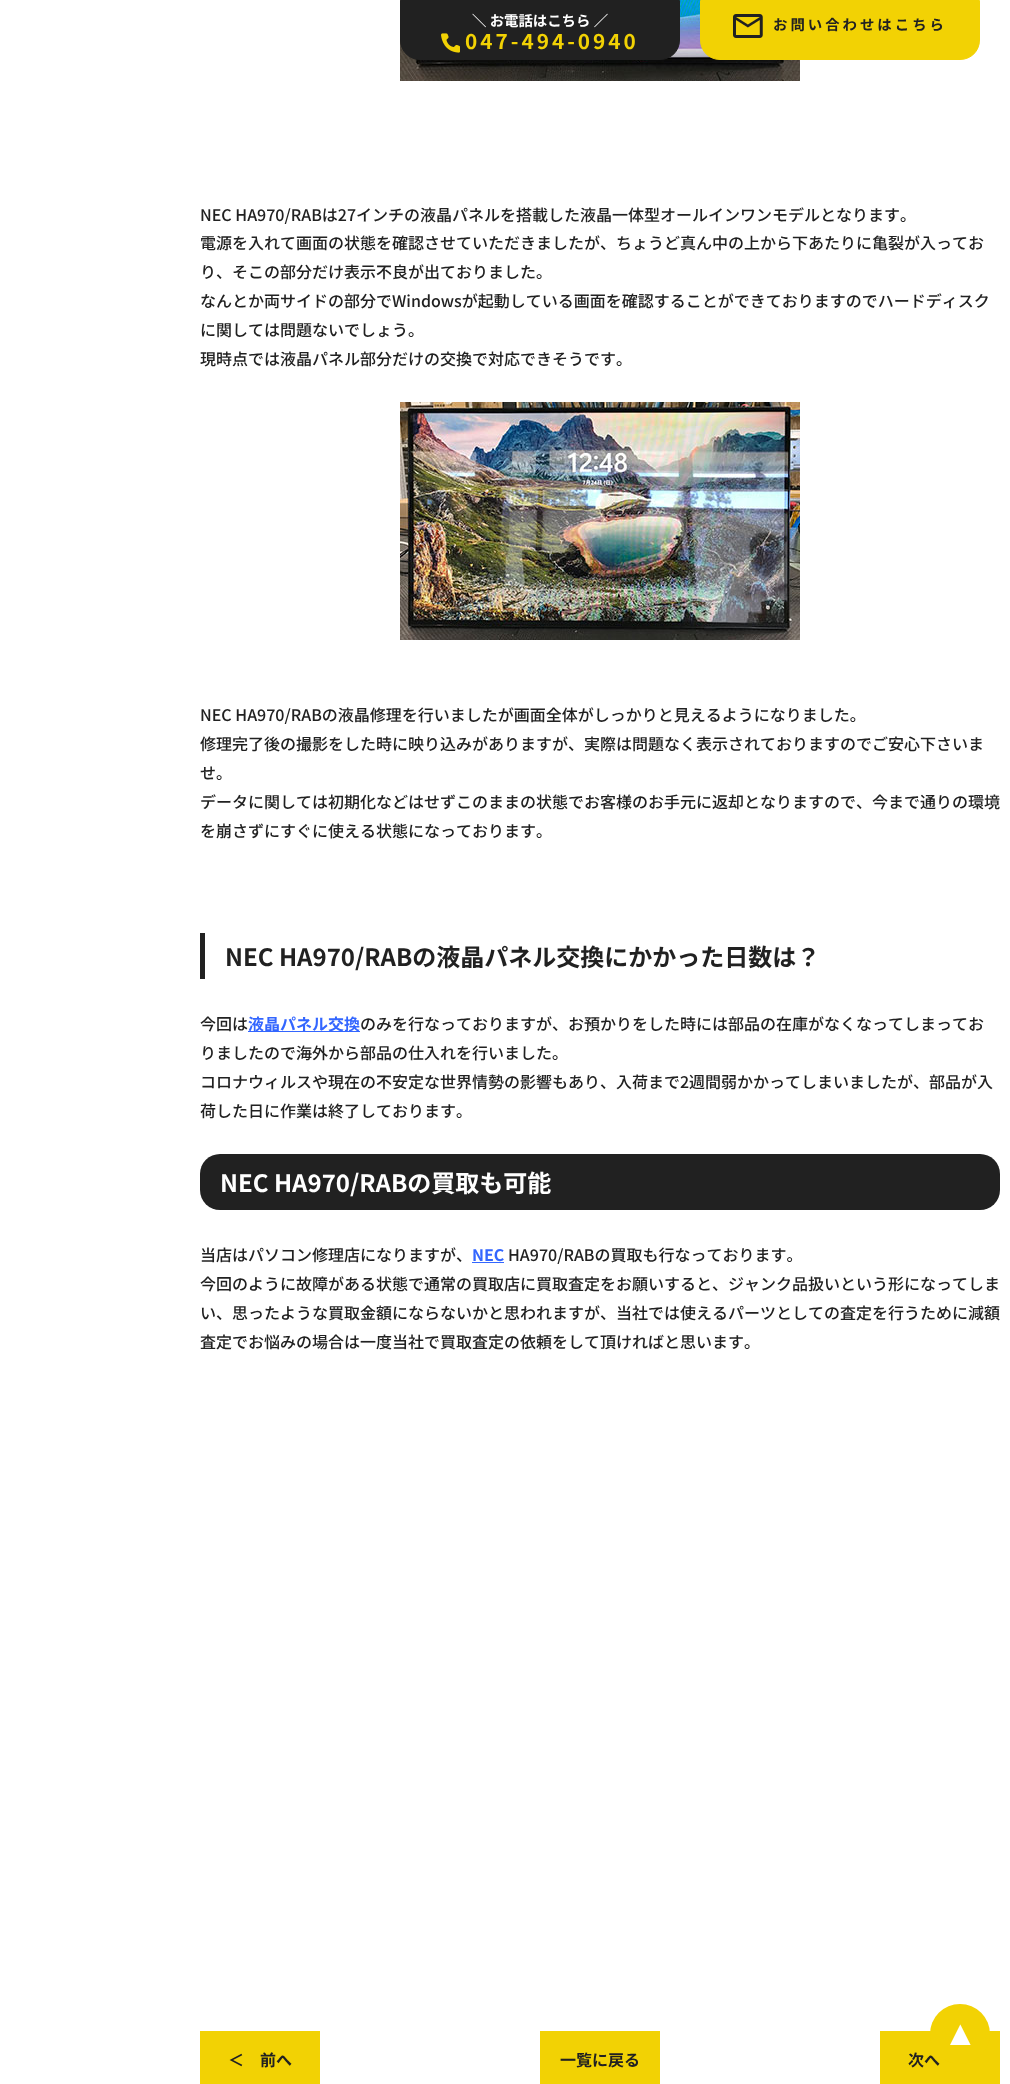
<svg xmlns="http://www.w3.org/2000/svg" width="1010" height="2084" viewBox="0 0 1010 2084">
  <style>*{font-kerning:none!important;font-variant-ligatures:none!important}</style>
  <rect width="100%" height="100%" fill="#fff"/>
  <image x="400" y="0" width="400" height="81" href="img/3.png"/>
  <path d="M400.5 .5H679.5V40C679.5 51 671 59.5 660 59.5H420C409 59.5 400.5 51 400.5 40Z" fill="#212121" stroke="#212121"/>
  <image x="441" y="33" width="19" height="20" href="img/1.png"/>
  <path d="M700.5 .5H979.5V40C979.5 51 971 59.5 960 59.5H720C709 59.5 700.5 51 700.5 40Z" fill="#f2d204" stroke="#f2d204"/>
  <image x="733" y="14" width="30" height="24" href="img/2.png"/>
  <image x="400" y="402" width="400" height="238" href="img/4.png"/>
  <path d="M200 933h5v46H200z" fill="#212121"/>
  <path d="M248 1031h112v1H248z" fill="#36f"/>
  <rect x="200" y="1154" width="800" height="56" rx="20" fill="#212121"/>
  <path d="M472 1262h32v1H472z" fill="#36f"/>
  <path d="M200 2031h120v53H200z" fill="#f2d204"/>
  <path d="M540 2031h120v53H540z" fill="#f2d204"/>
  <path d="M880 2031h120v53H880z" fill="#f2d204"/>
  <text x="472" y="26" font-family="Noto Sans JP" font-size="14.4" font-weight="bold" fill="#fff">＼ お電話はこちら ／</text>
  <text x="465" y="49" font-family="Noto Sans JP" font-size="20.75" font-weight="bold" letter-spacing="3" fill="#f2d204">047-494-0940</text>
  <text x="773" y="30" font-family="Noto Sans JP" font-size="14.4" font-weight="bold" letter-spacing="3" fill="#212121">お問い合わせはこちら</text>
  <g font-family="Noto Sans JP" font-size="16" font-weight="500" fill="#212121">
    <text x="200" y="221">NEC HA970/RABは27インチの液晶パネルを搭載した液晶一体型オールインワンモデルとなります。</text>
    <text x="200" y="249">電源を入れて画面の状態を確認させていただきましたが、ちょうど真ん中の上から下あたりに亀裂が入ってお</text>
    <text x="200" y="278">り、そこの部分だけ表示不良が出ておりました。</text>
    <text x="200" y="307">なんとか両サイドの部分でWindowsが起動している画面を確認することができておりますのでハードディスク</text>
    <text x="200" y="336">に関しては問題ないでしょう。</text>
    <text x="200" y="365">現時点では液晶パネル部分だけの交換で対応できそうです。</text>
    <text x="200" y="721">NEC HA970/RABの液晶修理を行いましたが画面全体がしっかりと見えるようになりました。</text>
    <text x="200" y="750">修理完了後の撮影をした時に映り込みがありますが、実際は問題なく表示されておりますのでご安心下さいま</text>
    <text x="200" y="779">せ。</text>
    <text x="200" y="808">データに関しては初期化などはせずこのままの状態でお客様のお手元に返却となりますので、今まで通りの環境</text>
    <text x="200" y="837">を崩さずにすぐに使える状態になっております。</text>
  </g>
  <text x="225" y="966" font-family="Noto Sans JP" font-size="24" font-weight="bold" fill="#212121">NEC HA970/RABの液晶パネル交換にかかった日数は？</text>
  <text x="200" y="1030" font-family="Noto Sans JP" font-size="16" font-weight="500" fill="#212121">今回は</text>
  <text x="248" y="1030" font-family="Noto Sans JP" font-size="16" font-weight="bold" fill="#36f">液晶パネル交換</text>
  <g font-family="Noto Sans JP" font-size="16" font-weight="500" fill="#212121">
    <text x="360" y="1030">のみを行なっておりますが、お預かりをした時には部品の在庫がなくなってしまっ</text>
    <text x="952" y="1030">てお</text>
    <text x="200" y="1059">りましたので海外から部品の仕入れを行いました。</text>
    <text x="200" y="1088">コロナウィルスや現在の不安定な世界情勢の影響もあり、入荷まで2週間弱かかってしまいましたが、部品が入</text>
    <text x="200" y="1117">荷した日に作業は終了しております。</text>
  </g>
  <text x="220" y="1192" font-family="Noto Sans JP" font-size="24" font-weight="bold" fill="#fff">NEC HA970/RABの買取も可能</text>
  <text x="200" y="1261" font-family="Noto Sans JP" font-size="16" font-weight="500" fill="#212121">当店はパソコン修理店になりますが、</text>
  <text x="472" y="1261" font-family="Noto Sans JP" font-size="16" font-weight="bold" fill="#36f">NEC</text>
  <g font-family="Noto Sans JP" font-size="16" font-weight="500" fill="#212121">
    <text x="508" y="1261">HA970/RABの買取も行なっております。</text>
    <text x="200" y="1290">今回のように故障がある状態で通常の買取店に買取査定をお願いすると、ジャンク品扱いという形になってしま</text>
    <text x="200" y="1319">い、思ったような買取金額にならないかと思われますが、当社では使えるパーツとしての査定を行うために減額</text>
    <text x="200" y="1348">査定でお悩みの場合は一度当社で買取査定の依頼をして頂ければと思います。</text>
  </g>
  <g font-family="Noto Sans JP" font-size="16" font-weight="bold" fill="#212121">
    <text x="228" y="2066">＜　前へ</text>
    <text x="560" y="2066">一覧に戻る</text>
    <text x="908" y="2066">次へ</text>
  </g>
  <circle cx="960" cy="2034" r="30" fill="#f2d204"/>
  <text x="943" y="2045" font-family="Liberation Sans" font-size="35" fill="#fff">▲</text>
</svg>
